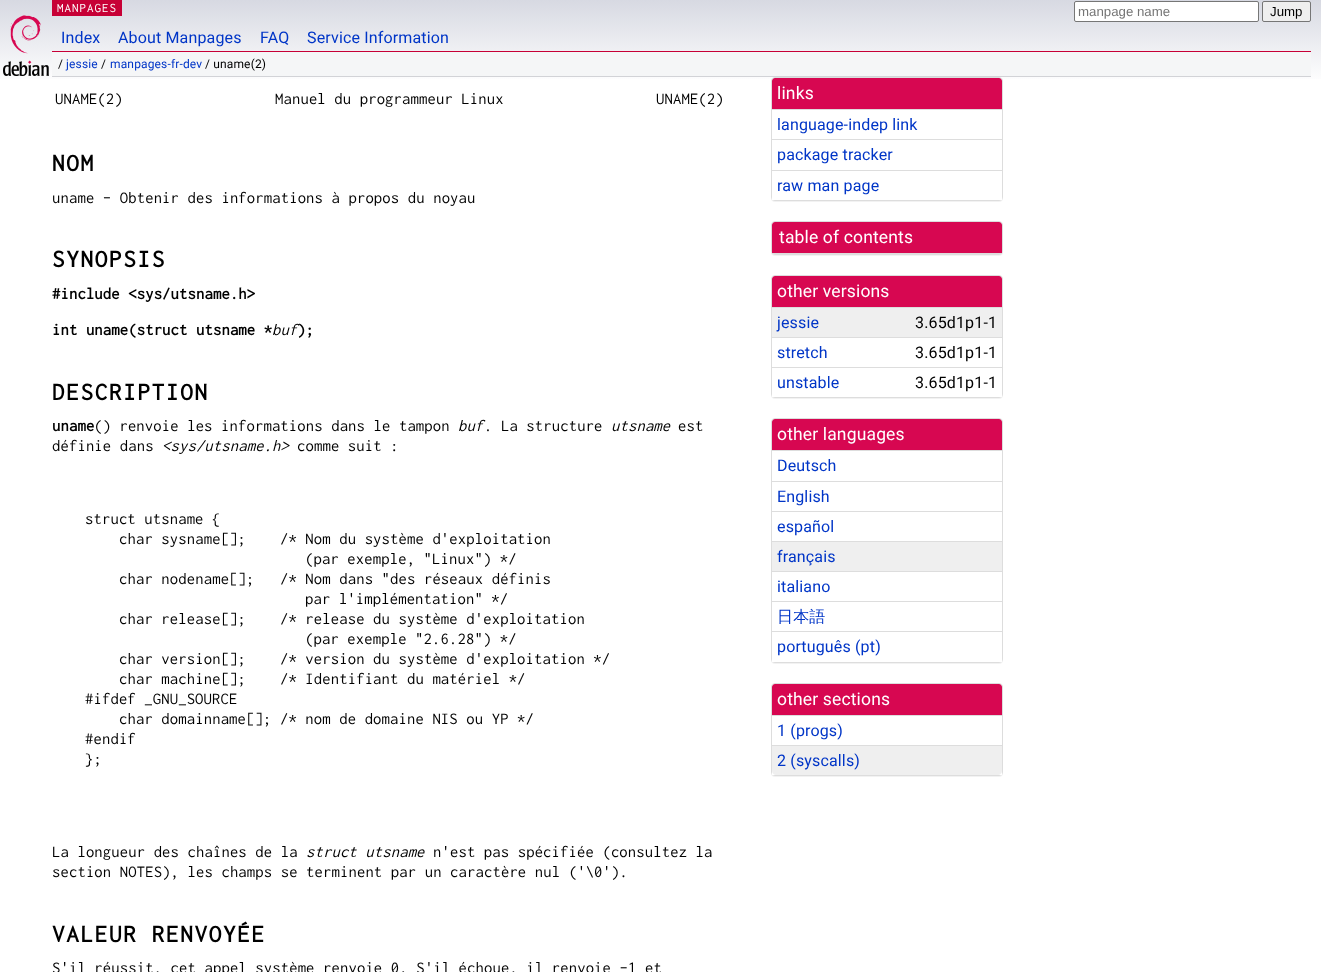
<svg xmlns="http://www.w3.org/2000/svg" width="1321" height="972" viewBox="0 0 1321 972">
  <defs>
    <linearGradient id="g1" gradientUnits="userSpaceOnUse" x1="660" y1="0" x2="661" y2="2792"><stop offset="0" stop-color="#d7d9e2"/><stop offset="0.03" stop-color="#fff"/></linearGradient>
  </defs>
  <rect width="100%" height="100%" fill="#fff"/>
  <path d="M0 0h1321v79H0z" fill="url(#g1)"/>
  <path d="M52 0h70v16H52z" fill="#c70036"/>
  <rect x="1074.5" y="1.5" width="184" height="20" rx="1.5" fill="#fff" stroke="#767676"/>
  <rect x="1262.5" y="1.5" width="48" height="20" rx="1.5" fill="#efefef" stroke="#767676"/>
  <image x="3" y="15" width="46" height="61" href="img/1.png"/>
  <path d="M52 51h1259v1H52z" fill="#c70036"/>
  <path d="M52 52h1259v24H52z" fill="#f5f6f7"/>
  <path d="M52 76h1259v1H52z" fill="#d2d3d7"/>
  <rect x="771" y="78" width="232" height="124" rx="4" fill="#0000000d" filter="blur(0.5px)"/>
  <rect x="771.5" y="77.5" width="231" height="123" rx="3.5" fill="none" stroke="#ddd"/>
  <path d="M775 78H999C1000.5 78 1002 79.5 1002 81V110H772V81C772 79.5 773.5 78 775 78Z" fill="#d70751"/>
  <path d="M772 110h230v90H772z" fill="#fff"/>
  <path d="M772 109h230v1H772z" fill="#ddd"/>
  <path d="M772 139h230v1H772z" fill="#ddd"/>
  <path d="M772 170h230v1H772z" fill="#ddd"/>
  <rect x="771" y="222" width="232" height="34" rx="4" fill="#0000000d" filter="blur(0.5px)"/>
  <rect x="771.5" y="221.5" width="231" height="33" rx="3.5" fill="none" stroke="#ddd"/>
  <path d="M775 222H999C1000.5 222 1002 223.5 1002 225V254H772V225C772 223.5 773.5 222 775 222Z" fill="#d70751"/>
  <path d="M772 253h230v1H772z" fill="#ddd"/>
  <rect x="771" y="276" width="232" height="123" rx="4" fill="#0000000d" filter="blur(0.5px)"/>
  <rect x="771.5" y="275.5" width="231" height="122" rx="3.5" fill="none" stroke="#ddd"/>
  <path d="M775 276H999C1000.5 276 1002 277.5 1002 279V308H772V279C772 277.5 773.5 276 775 276Z" fill="#d70751"/>
  <path d="M772 338h230v59H772z" fill="#fff"/>
  <path d="M772 308h230v29H772z" fill="#efefef"/>
  <path d="M772 307h230v1H772z" fill="#ddd"/>
  <path d="M772 337h230v1H772z" fill="#ddd"/>
  <path d="M772 367h230v1H772z" fill="#ddd"/>
  <rect x="771" y="419" width="232" height="245" rx="4" fill="#0000000d" filter="blur(0.5px)"/>
  <rect x="771.5" y="418.5" width="231" height="244" rx="3.5" fill="none" stroke="#ddd"/>
  <path d="M775 419H999C1000.5 419 1002 420.5 1002 422V451H772V422C772 420.5 773.5 419 775 419Z" fill="#d70751"/>
  <path d="M772 451h230v211H772z" fill="#fff"/>
  <path d="M772 450h230v1H772z" fill="#ddd"/>
  <path d="M772 481h230v1H772z" fill="#ddd"/>
  <path d="M772 511h230v1H772z" fill="#ddd"/>
  <path d="M772 541h230v1H772z" fill="#ddd"/>
  <path d="M772 542h230v29H772z" fill="#efefef"/>
  <path d="M772 571h230v1H772z" fill="#ddd"/>
  <path d="M772 601h230v1H772z" fill="#ddd"/>
  <path d="M772 631h230v1H772z" fill="#ddd"/>
  <rect x="771" y="684" width="232" height="93" rx="4" fill="#0000000d" filter="blur(0.5px)"/>
  <rect x="771.5" y="683.5" width="231" height="92" rx="3.5" fill="none" stroke="#ddd"/>
  <path d="M775 684H999C1000.5 684 1002 685.5 1002 687V716H772V687C772 685.5 773.5 684 775 684Z" fill="#d70751"/>
  <path d="M772 716h230v59H772z" fill="#fff"/>
  <path d="M772 715h230v1H772z" fill="#ddd"/>
  <path d="M772 745H1002V771C1002 773 1000 775 998 775H776C774 775 772 773 772 771Z" fill="#efefef"/>
  <path d="M772 745h230v1H772z" fill="#ddd"/>
  <text x="57" y="12" font-family="Inconsolata" font-size="13" letter-spacing="1" fill="#fff">MANPAGES</text>
  <text x="1078" y="16" font-family="Liberation Sans" font-size="13.25" fill="#757575">manpage name</text>
  <text x="1270" y="16" font-family="Liberation Sans" font-size="13.25" fill="#000">Jump</text>
  <g font-family="Roboto" font-size="16" letter-spacing="0.15" fill="#0035c7">
    <text x="61" y="43">Index</text>
    <text x="118" y="43">About Manpages</text>
    <text x="260" y="43">FAQ</text>
    <text x="307" y="43">Service Information</text>
  </g>
  <text x="58" y="68" font-family="Roboto" font-size="12" letter-spacing="0.15" fill="#000">/</text>
  <text x="66" y="68" font-family="Roboto" font-size="12" letter-spacing="0.15" fill="#0035c7">jessie</text>
  <text x="101" y="68" font-family="Roboto" font-size="12" letter-spacing="0.15" fill="#000">/</text>
  <text x="110" y="68" font-family="Roboto" font-size="12" letter-spacing="0.15" fill="#0035c7">manpages-fr-dev</text>
  <text x="205" y="68" font-family="Roboto" font-size="12" letter-spacing="0.15" fill="#000">/ uname(2)</text>
  <g font-family="Inconsolata" font-size="16.65" letter-spacing="0.15" fill="#000">
    <text x="55" y="104">UNAME(2)</text>
    <text x="275" y="104">Manuel du programmeur Linux</text>
    <text x="656" y="104">UNAME(2)</text>
  </g>
  <text x="52" y="171" font-family="Inconsolata" font-size="25" font-weight="bold" letter-spacing="1.75" fill="#000">NOM</text>
  <text x="52" y="203" font-family="Inconsolata" font-size="16.65" letter-spacing="0.15" fill="#000">uname - Obtenir des informations à propos du noyau</text>
  <text x="52" y="267" font-family="Inconsolata" font-size="25" font-weight="bold" letter-spacing="1.75" fill="#000">SYNOPSIS</text>
  <g font-family="Inconsolata" font-size="16.65" font-weight="bold" letter-spacing="0.15" fill="#000">
    <text x="52" y="299">#include &lt;sys/utsname.h&gt;</text>
    <text x="52" y="335">int uname(struct utsname *</text>
  </g>
  <text x="272" y="335" font-family="Inconsolata" font-size="16.65" font-style="italic" letter-spacing="0.15" fill="#000">buf</text>
  <text x="297" y="335" font-family="Inconsolata" font-size="16.65" font-weight="bold" letter-spacing="0.15" fill="#000">);</text>
  <text x="52" y="400" font-family="Inconsolata" font-size="25" font-weight="bold" letter-spacing="1.75" fill="#000">DESCRIPTION</text>
  <text x="52" y="431" font-family="Inconsolata" font-size="16.65" font-weight="bold" letter-spacing="0.15" fill="#000">uname</text>
  <text x="94" y="431" font-family="Inconsolata" font-size="16.65" letter-spacing="0.15" fill="#000">() renvoie les informations dans le tampon</text>
  <text x="458" y="431" font-family="Inconsolata" font-size="16.65" font-style="italic" letter-spacing="0.15" fill="#000">buf</text>
  <text x="484" y="431" font-family="Inconsolata" font-size="16.65" letter-spacing="0.15" fill="#000">. La structure</text>
  <text x="611" y="431" font-family="Inconsolata" font-size="16.65" font-style="italic" letter-spacing="0.15" fill="#000">utsname</text>
  <g font-family="Inconsolata" font-size="16.65" letter-spacing="0.15" fill="#000">
    <text x="678" y="431">est</text>
    <text x="52" y="451">définie dans</text>
  </g>
  <text x="162" y="451" font-family="Inconsolata" font-size="16.65" font-style="italic" letter-spacing="0.15" fill="#000">&lt;sys/utsname.h&gt;</text>
  <g font-family="Inconsolata" font-size="16.65" letter-spacing="0.15" fill="#000">
    <text x="297" y="451">comme suit :</text>
    <text x="85" y="524">struct utsname {</text>
    <text x="119" y="544" xml:space="preserve">char sysname[];    /* Nom du système d'exploitation</text>
    <text x="305" y="564">(par exemple, "Linux") */</text>
    <text x="119" y="584" xml:space="preserve">char nodename[];   /* Nom dans "des réseaux définis</text>
    <text x="305" y="604">par l'implémentation" */</text>
    <text x="119" y="624" xml:space="preserve">char release[];    /* release du système d'exploitation</text>
    <text x="305" y="644">(par exemple "2.6.28") */</text>
    <text x="119" y="664" xml:space="preserve">char version[];    /* version du système d'exploitation */</text>
    <text x="119" y="684" xml:space="preserve">char machine[];    /* Identifiant du matériel */</text>
    <text x="85" y="704">#ifdef _GNU_SOURCE</text>
    <text x="119" y="724">char domainname[]; /* nom de domaine NIS ou YP */</text>
    <text x="85" y="744">#endif</text>
    <text x="85" y="764">};</text>
    <text x="52" y="857">La longueur des chaînes de la</text>
  </g>
  <text x="306" y="857" font-family="Inconsolata" font-size="16.65" font-style="italic" letter-spacing="0.15" fill="#000">struct utsname</text>
  <g font-family="Inconsolata" font-size="16.65" letter-spacing="0.15" fill="#000">
    <text x="433" y="857">n'est pas spécifiée (consultez la</text>
    <text x="52" y="877">section NOTES), les champs se terminent par un caractère nul ('\0').</text>
  </g>
  <text x="52" y="942" font-family="Inconsolata" font-size="25" font-weight="bold" letter-spacing="1.75" fill="#000">VALEUR RENVOYÉE</text>
  <text x="52" y="973" font-family="Inconsolata" font-size="16.65" letter-spacing="0.15" fill="#000">S'il réussit, cet appel système renvoie 0. S'il échoue, il renvoie -1 et</text>
  <text x="777" y="99" font-family="Roboto" font-size="17.5" letter-spacing="0.15" fill="#fff">links</text>
  <g font-family="Roboto" font-size="16" letter-spacing="0.15" fill="#0035c7">
    <text x="777" y="130">language-indep link</text>
    <text x="777" y="160">package tracker</text>
    <text x="777" y="191">raw man page</text>
  </g>
  <g font-family="Roboto" font-size="17.5" letter-spacing="0.15" fill="#fff">
    <text x="779" y="243">table of contents</text>
    <text x="777" y="297">other versions</text>
  </g>
  <text x="777" y="328" font-family="Roboto" font-size="16" letter-spacing="0.15" fill="#0035c7">jessie</text>
  <text x="915" y="328" font-family="Roboto" font-size="16" letter-spacing="0.15" fill="#000">3.65d1p1-1</text>
  <text x="777" y="358" font-family="Roboto" font-size="16" letter-spacing="0.15" fill="#0035c7">stretch</text>
  <text x="915" y="358" font-family="Roboto" font-size="16" letter-spacing="0.15" fill="#000">3.65d1p1-1</text>
  <text x="777" y="388" font-family="Roboto" font-size="16" letter-spacing="0.15" fill="#0035c7">unstable</text>
  <text x="915" y="388" font-family="Roboto" font-size="16" letter-spacing="0.15" fill="#000">3.65d1p1-1</text>
  <text x="777" y="440" font-family="Roboto" font-size="17.5" letter-spacing="0.15" fill="#fff">other languages</text>
  <g font-family="Roboto" font-size="16" letter-spacing="0.15" fill="#0035c7">
    <text x="777" y="471">Deutsch</text>
    <text x="777" y="502">English</text>
    <text x="777" y="532">español</text>
    <text x="777" y="562">français</text>
    <text x="777" y="592">italiano</text>
  </g>
  <text x="777" y="622" font-family="WenQuanYi Zen Hei" font-size="16" font-weight="500" letter-spacing="0.15" fill="#0035c7">日本語</text>
  <text x="777" y="652" font-family="Roboto" font-size="16" letter-spacing="0.15" fill="#0035c7">português (pt)</text>
  <text x="777" y="705" font-family="Roboto" font-size="17.5" letter-spacing="0.15" fill="#fff">other sections</text>
  <g font-family="Roboto" font-size="16" letter-spacing="0.15" fill="#0035c7">
    <text x="777" y="736">1 (progs)</text>
    <text x="777" y="766">2 (syscalls)</text>
  </g>
</svg>
